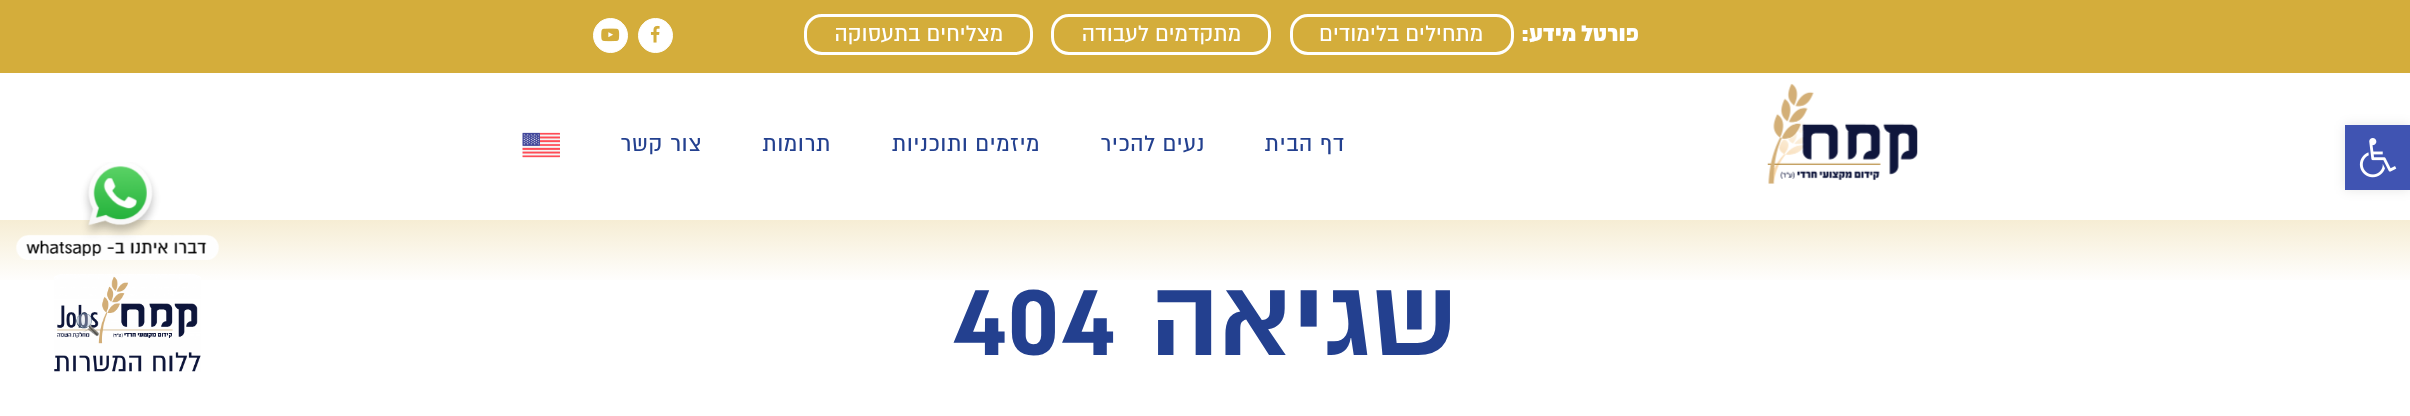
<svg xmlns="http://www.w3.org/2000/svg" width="2410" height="416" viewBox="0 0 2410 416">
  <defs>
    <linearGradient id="g1" gradientUnits="userSpaceOnUse" x1="1205" y1="220" x2="1205" y2="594"><stop offset="0" stop-color="#f6edd4"/><stop offset="0.17" stop-color="#fff"/></linearGradient>
  </defs>
  <rect width="100%" height="100%" fill="#fff"/>
  <path d="M2345 125h65v65H2345z" fill="#0000001a" filter="blur(6px)"/>
  <path d="M2345 125h65v65H2345z" fill="#4054b2"/>
  <image x="2359" y="138" width="38" height="40" href="img/1.png"/>
  <path d="M0 0h2410v73H0z" fill="#d4ad3b"/>
  <rect x="1291.5" y="15.5" width="221" height="38" rx="16.5" fill="none" stroke="#fff" stroke-width="3"/>
  <rect x="1052.5" y="15.5" width="217" height="38" rx="16.5" fill="none" stroke="#fff" stroke-width="3"/>
  <rect x="805.5" y="15.5" width="226" height="38" rx="16.5" fill="none" stroke="#fff" stroke-width="3"/>
  <circle cx="655.5" cy="35.5" r="17" fill="#fff" stroke="#fff"/>
  <image x="650" y="25" width="10" height="18" href="img/2.png"/>
  <circle cx="610.5" cy="35.5" r="17" fill="#fff" stroke="#fff"/>
  <image x="601" y="28" width="19" height="14" href="img/3.png"/>
  <image x="1767" y="83" width="151" height="101" href="img/4.png"/>
  <image x="522" y="132" width="38" height="26" href="img/5.png"/>
  <path d="M0 220h2410v60H0z" fill="url(#g1)"/>
  <image x="16" y="162" width="203" height="98" href="img/6.png"/>
  <image x="54" y="274" width="147" height="98" href="img/7.png"/>
  <text x="1639" y="41" font-family="'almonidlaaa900'" font-size="25" font-weight="900" direction="rtl" fill="#fff">פורטל מידע:</text>
  <g font-family="'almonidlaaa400'" font-size="25" direction="rtl" fill="#fff">
    <text x="1483" y="41">מתחילים בלימודים</text>
    <text x="1241" y="41">מתקדמים לעבודה</text>
    <text x="1003" y="41">מצליחים בתעסוקה</text>
  </g>
  <g font-family="'almonidlaaa400'" font-size="25" letter-spacing="0.6" direction="rtl" fill="#23408f">
    <text x="1345" y="151">דף הבית</text>
    <text x="1205" y="151">נעים להכיר</text>
    <text x="1040" y="151">מיזמים ותוכניות</text>
    <text x="831" y="151">תרומות</text>
    <text x="702" y="151">צור קשר</text>
  </g>
  <text x="1457" y="355" font-family="'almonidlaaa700'" font-size="125" font-weight="bold" direction="rtl" fill="#23408f">שגיאה</text>
  <text x="953" y="355" font-family="'almonidlaaa700'" font-size="125" font-weight="bold" fill="#23408f">404</text>
</svg>
